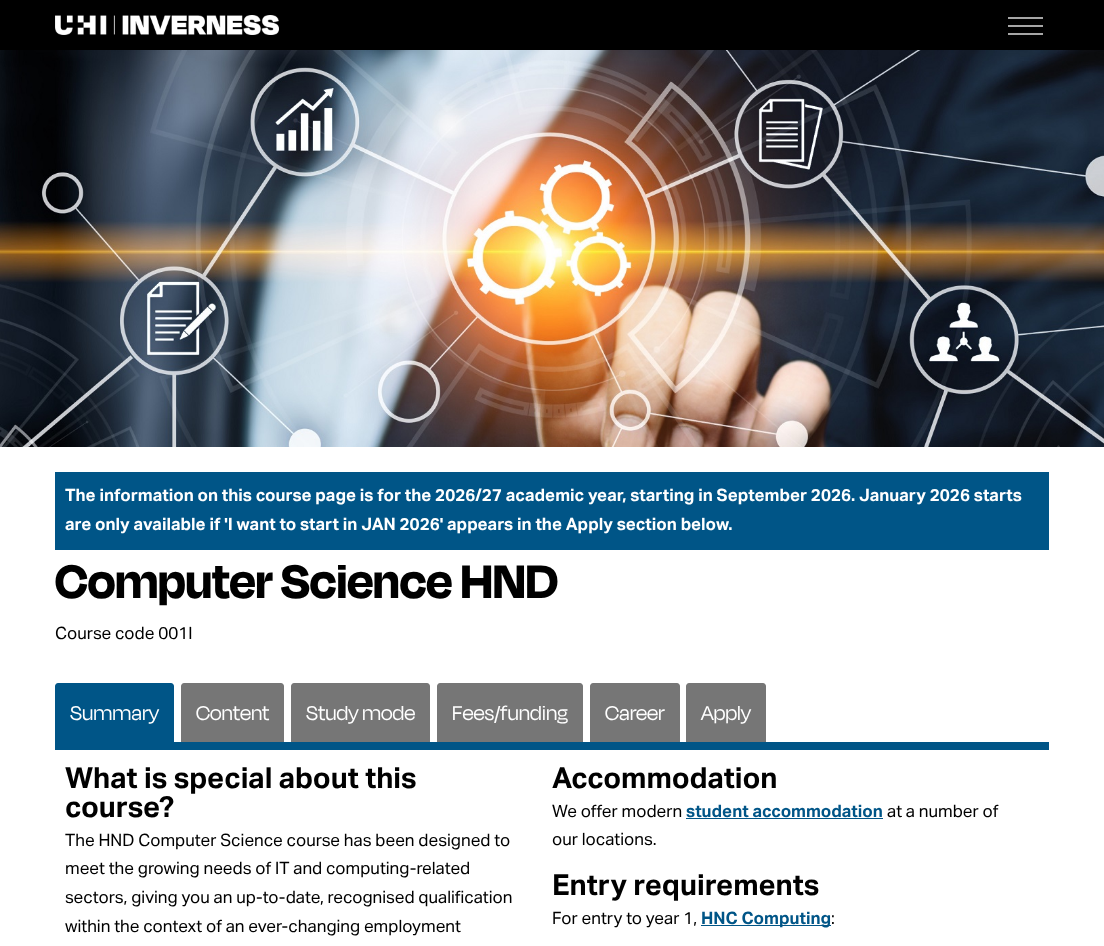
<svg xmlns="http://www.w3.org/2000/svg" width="1104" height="946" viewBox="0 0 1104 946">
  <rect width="100%" height="100%" fill="#fff"/>
  <path d="M0 0h1104v50H0z" fill="#000"/>
  <image x="55" y="15" width="224" height="20" href="img/1.png"/>
  <path d="M1008 17h35v2H1008z" fill="#a6a6a6"/>
  <path d="M1008 25h35v2H1008z" fill="#a6a6a6"/>
  <path d="M1008 33h35v2H1008z" fill="#a6a6a6"/>
  <image x="0" y="50" width="1104" height="397" href="img/2.png"/>
  <path d="M55 472h994v78H55z" fill="#005587"/>
  <path d="M55 742h994v8H55z" fill="#005587"/>
  <path d="M58 683H171C172.5 683 174 684.5 174 686V742H55V686C55 684.5 56.5 683 58 683Z" fill="#005587"/>
  <path d="M184 683H281C282.5 683 284 684.5 284 686V742H181V686C181 684.5 182.5 683 184 683Z" fill="#767676"/>
  <path d="M294 683H427C428.5 683 430 684.5 430 686V742H291V686C291 684.5 292.5 683 294 683Z" fill="#767676"/>
  <path d="M440 683H580C581.5 683 583 684.5 583 686V742H437V686C437 684.5 438.5 683 440 683Z" fill="#767676"/>
  <path d="M593 683H677C678.5 683 680 684.5 680 686V742H590V686C590 684.5 591.5 683 593 683Z" fill="#767676"/>
  <path d="M689 683H763C764.5 683 766 684.5 766 686V742H686V686C686 684.5 687.5 683 689 683Z" fill="#767676"/>
  <path d="M686 818h197v1H686z" fill="#005587"/>
  <path d="M701 925h130v1H701z" fill="#005587"/>
  <g font-family="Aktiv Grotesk" font-size="17" font-weight="bold" fill="#fff">
    <text x="65" y="501">The information on this course page is for the 2026/27 academic year, starting in September 2026. January 2026 starts</text>
    <text x="65" y="530">are only available if 'I want to start in JAN 2026' appears in the Apply section below.</text>
  </g>
  <text x="55" y="598" font-family="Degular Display" font-size="54" font-weight="bold" fill="#000">Computer Science HND</text>
  <text x="55" y="639" font-family="Aktiv Grotesk" font-size="17" fill="#000">Course code 001I</text>
  <g font-family="Degular Display" font-size="23" fill="#fff">
    <text x="70" y="720">Summary</text>
    <text x="196" y="720">Content</text>
    <text x="306" y="720">Study mode</text>
    <text x="452" y="720">Fees/funding</text>
    <text x="605" y="720">Career</text>
    <text x="701" y="720">Apply</text>
  </g>
  <g font-family="Aktiv Grotesk" font-size="29" font-weight="bold" fill="#000">
    <text x="65" y="788">What is special about this</text>
    <text x="65" y="817">course?</text>
  </g>
  <g font-family="Aktiv Grotesk" font-size="17" fill="#000">
    <text x="65" y="846">The HND Computer Science course has been designed to</text>
    <text x="65" y="874">meet the growing needs of IT and computing-related</text>
    <text x="65" y="903">sectors, giving you an up-to-date, recognised qualification</text>
    <text x="65" y="932">within the context of an ever-changing employment</text>
  </g>
  <text x="552" y="788" font-family="Aktiv Grotesk" font-size="29" font-weight="bold" fill="#000">Accommodation</text>
  <text x="552" y="817" font-family="Aktiv Grotesk" font-size="17" fill="#000">We offer modern</text>
  <text x="686" y="817" font-family="Aktiv Grotesk" font-size="17" font-weight="bold" fill="#005587">student accommodation</text>
  <g font-family="Aktiv Grotesk" font-size="17" fill="#000">
    <text x="887" y="817">at a number of</text>
    <text x="552" y="845">our locations.</text>
  </g>
  <text x="552" y="895" font-family="Aktiv Grotesk" font-size="29" font-weight="bold" fill="#000">Entry requirements</text>
  <text x="552" y="924" font-family="Aktiv Grotesk" font-size="17" fill="#000">For entry to year 1,</text>
  <text x="701" y="924" font-family="Aktiv Grotesk" font-size="17" font-weight="bold" fill="#005587">HNC Computing</text>
  <text x="831" y="924" font-family="Aktiv Grotesk" font-size="17" fill="#000">:</text>
</svg>
